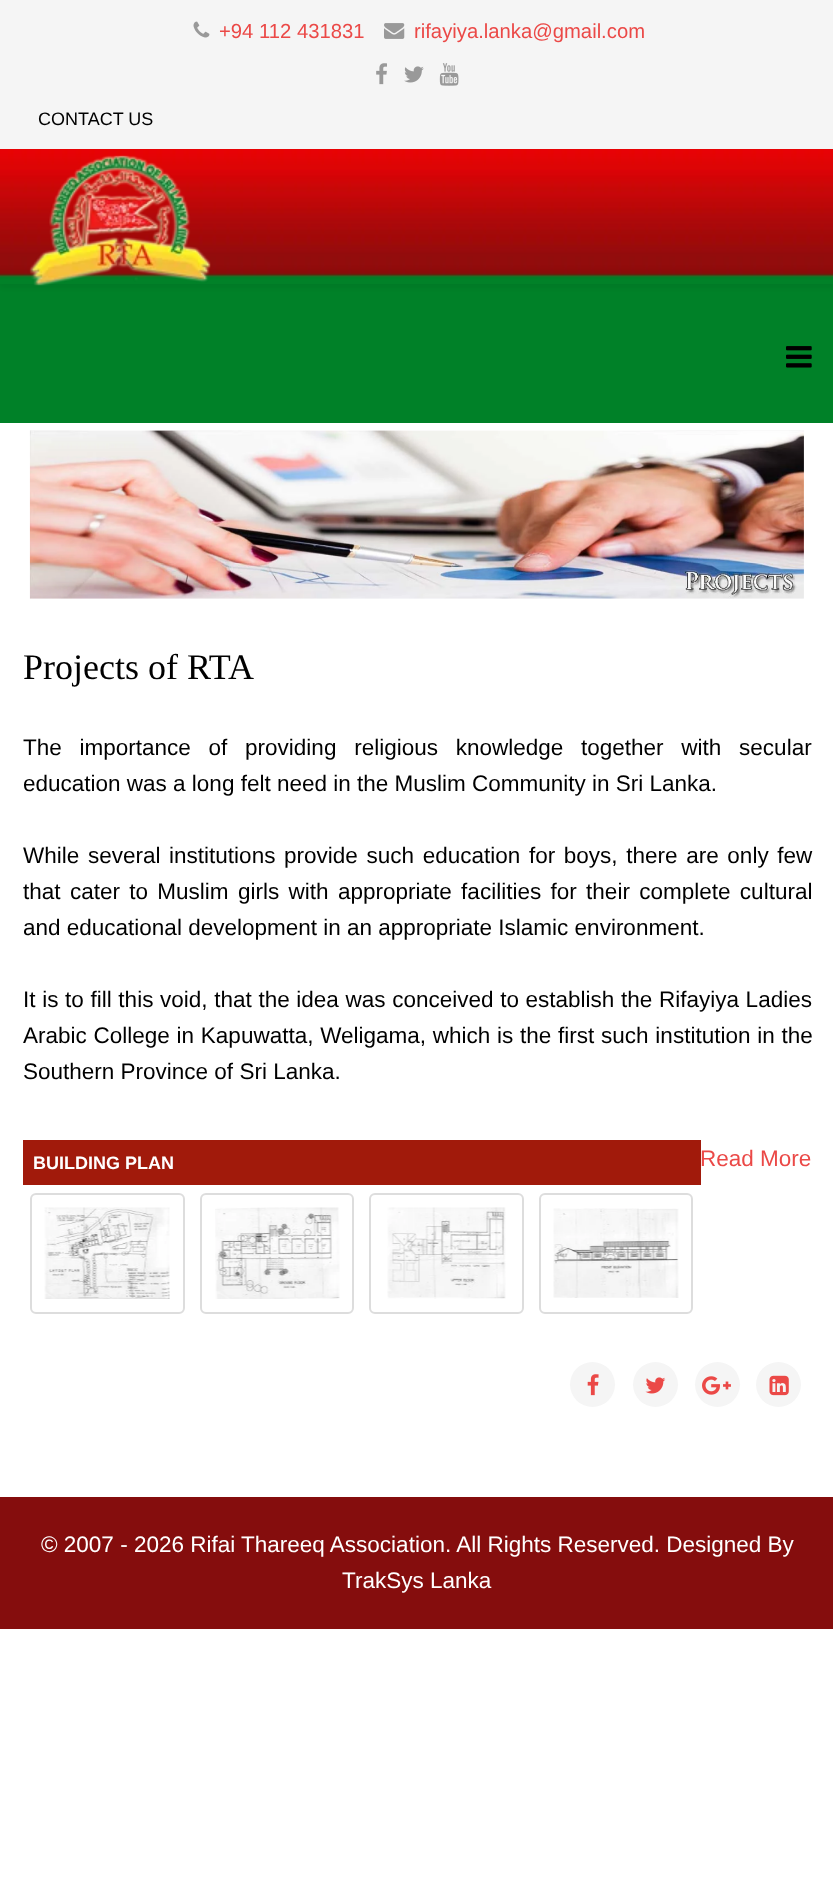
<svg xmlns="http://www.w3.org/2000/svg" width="833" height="1889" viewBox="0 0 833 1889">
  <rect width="100%" height="100%" fill="#fff"/>
  <path d="M0 0h833v149H0z" fill="#f5f5f5"/>
  <image x="193" y="21" width="17" height="17" href="img/1.png"/>
  <image x="384" y="23" width="21" height="16" href="img/2.png"/>
  <image x="376" y="63" width="11" height="22" href="img/3.png"/>
  <image x="404" y="66" width="20" height="17" href="img/4.png"/>
  <image x="439" y="63" width="20" height="23" href="img/5.png"/>
  <path d="M0 284h833v139H0z" fill="#008128"/>
  <path d="M0 153h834v135H0z" fill="#0000000d" filter="blur(2px)"/>
  <image x="0" y="149" width="833" height="135" href="img/6.png"/>
  <image x="29" y="155" width="182" height="131" href="img/7.png"/>
  <image x="786" y="346" width="26" height="22" href="img/8.png"/>
  <image x="29" y="430" width="775" height="169" href="img/9.png"/>
  <path d="M23 1140h678v45H23z" fill="#a11a0b"/>
  <rect x="31" y="1194" width="153" height="119" rx="5" fill="none" stroke="#ddd" stroke-width="2"/>
  <image x="44" y="1207" width="126" height="92" href="img/10.png"/>
  <rect x="201" y="1194" width="152" height="119" rx="5" fill="none" stroke="#ddd" stroke-width="2"/>
  <image x="215" y="1207" width="125" height="92" href="img/11.png"/>
  <rect x="370" y="1194" width="153" height="119" rx="5" fill="none" stroke="#ddd" stroke-width="2"/>
  <image x="387" y="1207" width="119" height="92" href="img/12.png"/>
  <rect x="540" y="1194" width="152" height="119" rx="5" fill="none" stroke="#ddd" stroke-width="2"/>
  <image x="553" y="1208" width="126" height="90" href="img/13.png"/>
  <circle cx="592.5" cy="1384.5" r="22.5" fill="#f5f5f5"/>
  <image x="587" y="1374" width="12" height="22" href="img/14.png"/>
  <circle cx="655.5" cy="1384.5" r="22.5" fill="#f5f5f5"/>
  <image x="645" y="1377" width="21" height="17" href="img/15.png"/>
  <circle cx="717.5" cy="1384.5" r="22.5" fill="#f5f5f5"/>
  <image x="702" y="1376" width="29" height="19" href="img/16.png"/>
  <circle cx="778.5" cy="1384.5" r="22.5" fill="#f5f5f5"/>
  <image x="769" y="1375" width="20" height="21" href="img/17.png"/>
  <path d="M0 1497h833v132H0z" fill="#850d0d"/>
  <g font-family="Liberation Sans" font-size="20.25" fill="#eb4947">
    <text x="219" y="38">+94 112 431831</text>
    <text x="414" y="38">rifayiya.lanka@gmail.com</text>
  </g>
  <text x="38" y="125" font-family="Liberation Sans" font-size="18" fill="#000">CONTACT US</text>
  <text x="23" y="679" font-family="Liberation Serif" font-size="36" fill="#000">Projects of RTA</text>
  <g font-family="Liberation Sans" font-size="22.5" fill="#000">
    <text x="23" y="755" word-spacing="11.5">The importance of providing religious knowledge together with secular</text>
    <text x="23" y="791">education was a long felt need in the Muslim Community in Sri Lanka.</text>
    <text x="23" y="863" word-spacing="2.4">While several institutions provide such education for boys, there are only few</text>
    <text x="23" y="899" word-spacing="3.1">that cater to Muslim girls with appropriate facilities for their complete cultural</text>
    <text x="23" y="935">and educational development in an appropriate Islamic environment.</text>
    <text x="23" y="1007" word-spacing="0.4">It is to fill this void, that the idea was conceived to establish the Rifayiya Ladies</text>
    <text x="23" y="1043" word-spacing="0.5">Arabic College in Kapuwatta, Weligama, which is the first such institution in the</text>
    <text x="23" y="1079">Southern Province of Sri Lanka.</text>
  </g>
  <text x="33" y="1169" font-family="Liberation Sans" font-size="18" font-weight="bold" fill="#fff">BUILDING PLAN</text>
  <text x="700" y="1166" font-family="Liberation Sans" font-size="22.5" fill="#eb4947">Read More</text>
  <g font-family="Liberation Sans" font-size="22.5" fill="#fff">
    <text x="41" y="1552">© 2007 - 2026 Rifai Thareeq Association. All Rights Reserved. Designed By</text>
    <text x="342" y="1588">TrakSys Lanka</text>
  </g>
</svg>
